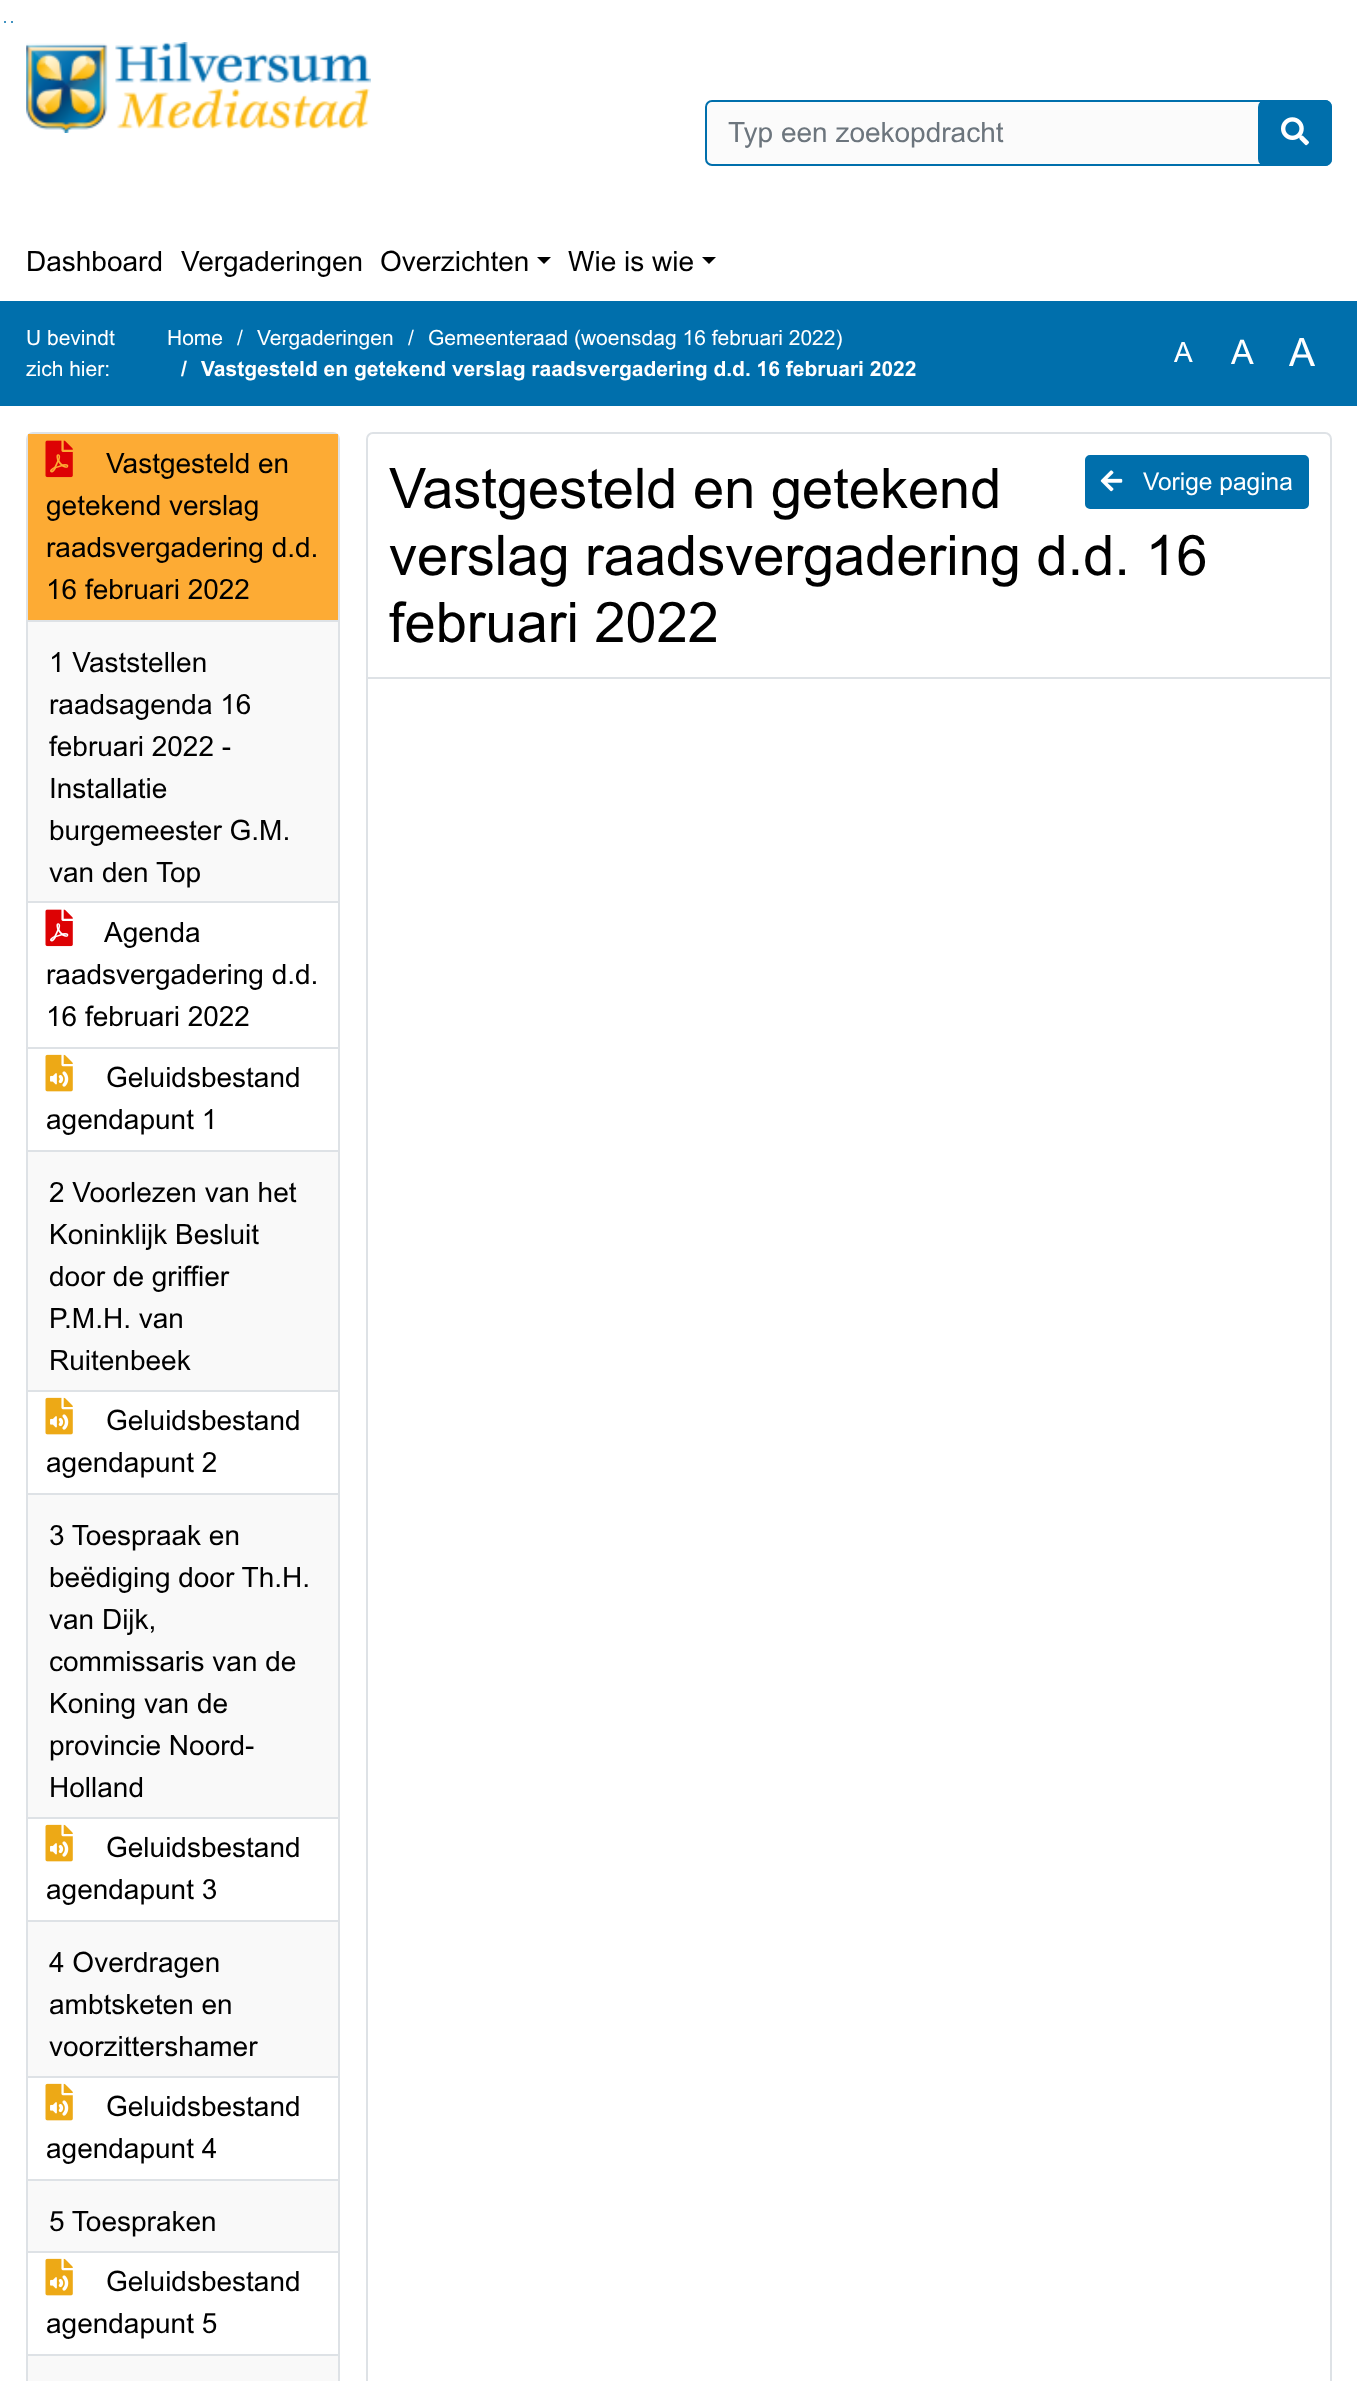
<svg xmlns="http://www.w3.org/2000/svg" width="1357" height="2381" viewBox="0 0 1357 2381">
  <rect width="100%" height="100%" fill="#fff"/>
  <circle cx="5" cy="22" r="1" fill="#006fac"/>
  <circle cx="12" cy="22" r="1" fill="#006fac"/>
  <image x="26" y="42" width="345" height="91" href="img/1.png"/>
  <rect x="706" y="101" width="625" height="64" rx="6" fill="#fbfbfb" stroke="#006fac" stroke-width="2"/>
  <rect x="1258" y="100" width="74" height="66" rx="7" fill="#006fac"/>
  <image x="1281" y="117" width="28" height="29" href="img/2.png"/>
  <path d="M537 257H551L544 264Z" fill="#000"/>
  <path d="M702 257H716L709 264Z" fill="#000"/>
  <path d="M0 301h1357v105H0z" fill="#006fac"/>
  <rect x="27" y="433" width="312" height="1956" rx="6" fill="none" stroke="#dee2e6" stroke-width="2"/>
  <path d="M28 434h310v186H28z" fill="#fdab34"/>
  <path d="M28 620h310v2H28z" fill="#dee2e6"/>
  <image x="45" y="440" width="28" height="38" href="img/3.png"/>
  <path d="M28 622h310v279H28z" fill="#f9f9f9"/>
  <path d="M28 901h310v2H28z" fill="#dee2e6"/>
  <path d="M28 1047h310v2H28z" fill="#dee2e6"/>
  <image x="45" y="909" width="28" height="38" href="img/4.png"/>
  <path d="M28 1150h310v2H28z" fill="#dee2e6"/>
  <image x="45" y="1054" width="28" height="38" href="img/5.png"/>
  <path d="M28 1152h310v238H28z" fill="#f9f9f9"/>
  <path d="M28 1390h310v2H28z" fill="#dee2e6"/>
  <path d="M28 1493h310v2H28z" fill="#dee2e6"/>
  <image x="45" y="1397" width="28" height="38" href="img/5.png"/>
  <path d="M28 1495h310v322H28z" fill="#f9f9f9"/>
  <path d="M28 1817h310v2H28z" fill="#dee2e6"/>
  <path d="M28 1920h310v2H28z" fill="#dee2e6"/>
  <image x="45" y="1824" width="28" height="38" href="img/5.png"/>
  <path d="M28 1922h310v154H28z" fill="#f9f9f9"/>
  <path d="M28 2076h310v2H28z" fill="#dee2e6"/>
  <path d="M28 2179h310v2H28z" fill="#dee2e6"/>
  <image x="45" y="2083" width="28" height="38" href="img/5.png"/>
  <path d="M28 2181h310v70H28z" fill="#f9f9f9"/>
  <path d="M28 2251h310v2H28z" fill="#dee2e6"/>
  <path d="M28 2354h310v2H28z" fill="#dee2e6"/>
  <image x="45" y="2258" width="28" height="38" href="img/5.png"/>
  <path d="M28 2356h310v25H28z" fill="#f9f9f9"/>
  <rect x="367" y="433" width="964" height="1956" rx="6" fill="none" stroke="#dee2e6" stroke-width="2"/>
  <rect x="1086" y="456" width="222" height="52" rx="4" fill="#006fac" stroke="#006fac" stroke-width="2"/>
  <image x="1100" y="470" width="23" height="22" href="img/6.png"/>
  <path d="M368 677h962v2H368z" fill="#dee2e6"/>
  <text x="728" y="142" font-family="Arial" font-size="28" fill="#6c757d">Typ een zoekopdracht</text>
  <g font-family="Arial" font-size="28" fill="#000">
    <text x="26" y="271">Dashboard</text>
    <text x="181" y="271">Vergaderingen</text>
    <text x="380" y="271">Overzichten</text>
    <text x="568" y="271">Wie is wie</text>
  </g>
  <g font-family="Arial" font-size="21" fill="#fff">
    <text x="26" y="345">U bevindt</text>
    <text x="26" y="376">zich hier:</text>
    <text x="167" y="345">Home</text>
    <text x="237" y="345">/</text>
    <text x="257" y="345">Vergaderingen</text>
    <text x="408" y="345">/</text>
    <text x="428" y="345">Gemeenteraad (woensdag 16 februari 2022)</text>
  </g>
  <g font-family="Arial" font-size="21" font-weight="bold" fill="#fff">
    <text x="181" y="376">/</text>
    <text x="201" y="376">Vastgesteld en getekend verslag raadsvergadering d.d. 16 februari 2022</text>
  </g>
  <text x="1174" y="362" font-family="Arial" font-size="28" fill="#fff">A</text>
  <text x="1231" y="364" font-family="Arial" font-size="34" fill="#fff">A</text>
  <text x="1289" y="366" font-family="Arial" font-size="39" fill="#fff">A</text>
  <g font-family="Arial" font-size="28" fill="#000">
    <text x="106" y="473">Vastgesteld en</text>
    <text x="46" y="515">getekend verslag</text>
    <text x="46" y="557">raadsvergadering d.d.</text>
    <text x="46" y="599">16 februari 2022</text>
    <text x="49" y="672">1 Vaststellen</text>
    <text x="49" y="714">raadsagenda 16</text>
    <text x="49" y="756">februari 2022 -</text>
    <text x="49" y="798">Installatie</text>
    <text x="49" y="840">burgemeester G.M.</text>
    <text x="49" y="882">van den Top</text>
    <text x="104" y="942">Agenda</text>
    <text x="46" y="984">raadsvergadering d.d.</text>
    <text x="46" y="1026">16 februari 2022</text>
    <text x="106" y="1087">Geluidsbestand</text>
    <text x="46" y="1129">agendapunt 1</text>
    <text x="49" y="1202">2 Voorlezen van het</text>
    <text x="49" y="1244">Koninklijk Besluit</text>
    <text x="49" y="1286">door de griffier</text>
    <text x="49" y="1328">P.M.H. van</text>
    <text x="49" y="1370">Ruitenbeek</text>
    <text x="106" y="1430">Geluidsbestand</text>
    <text x="46" y="1472">agendapunt 2</text>
    <text x="49" y="1545">3 Toespraak en</text>
    <text x="49" y="1587">beëdiging door Th.H.</text>
    <text x="49" y="1629">van Dijk,</text>
    <text x="49" y="1671">commissaris van de</text>
    <text x="49" y="1713">Koning van de</text>
    <text x="49" y="1755">provincie Noord-</text>
    <text x="49" y="1797">Holland</text>
    <text x="106" y="1857">Geluidsbestand</text>
    <text x="46" y="1899">agendapunt 3</text>
    <text x="49" y="1972">4 Overdragen</text>
    <text x="49" y="2014">ambtsketen en</text>
    <text x="49" y="2056">voorzittershamer</text>
    <text x="106" y="2116">Geluidsbestand</text>
    <text x="46" y="2158">agendapunt 4</text>
    <text x="49" y="2231">5 Toespraken</text>
    <text x="106" y="2291">Geluidsbestand</text>
    <text x="46" y="2333">agendapunt 5</text>
  </g>
  <g font-family="Arial" font-size="56" fill="#000">
    <text x="389" y="508">Vastgesteld en getekend</text>
    <text x="389" y="575">verslag raadsvergadering d.d. 16</text>
    <text x="389" y="642">februari 2022</text>
  </g>
  <text x="1143" y="490" font-family="Arial" font-size="24.5" fill="#fff">Vorige pagina</text>
</svg>
